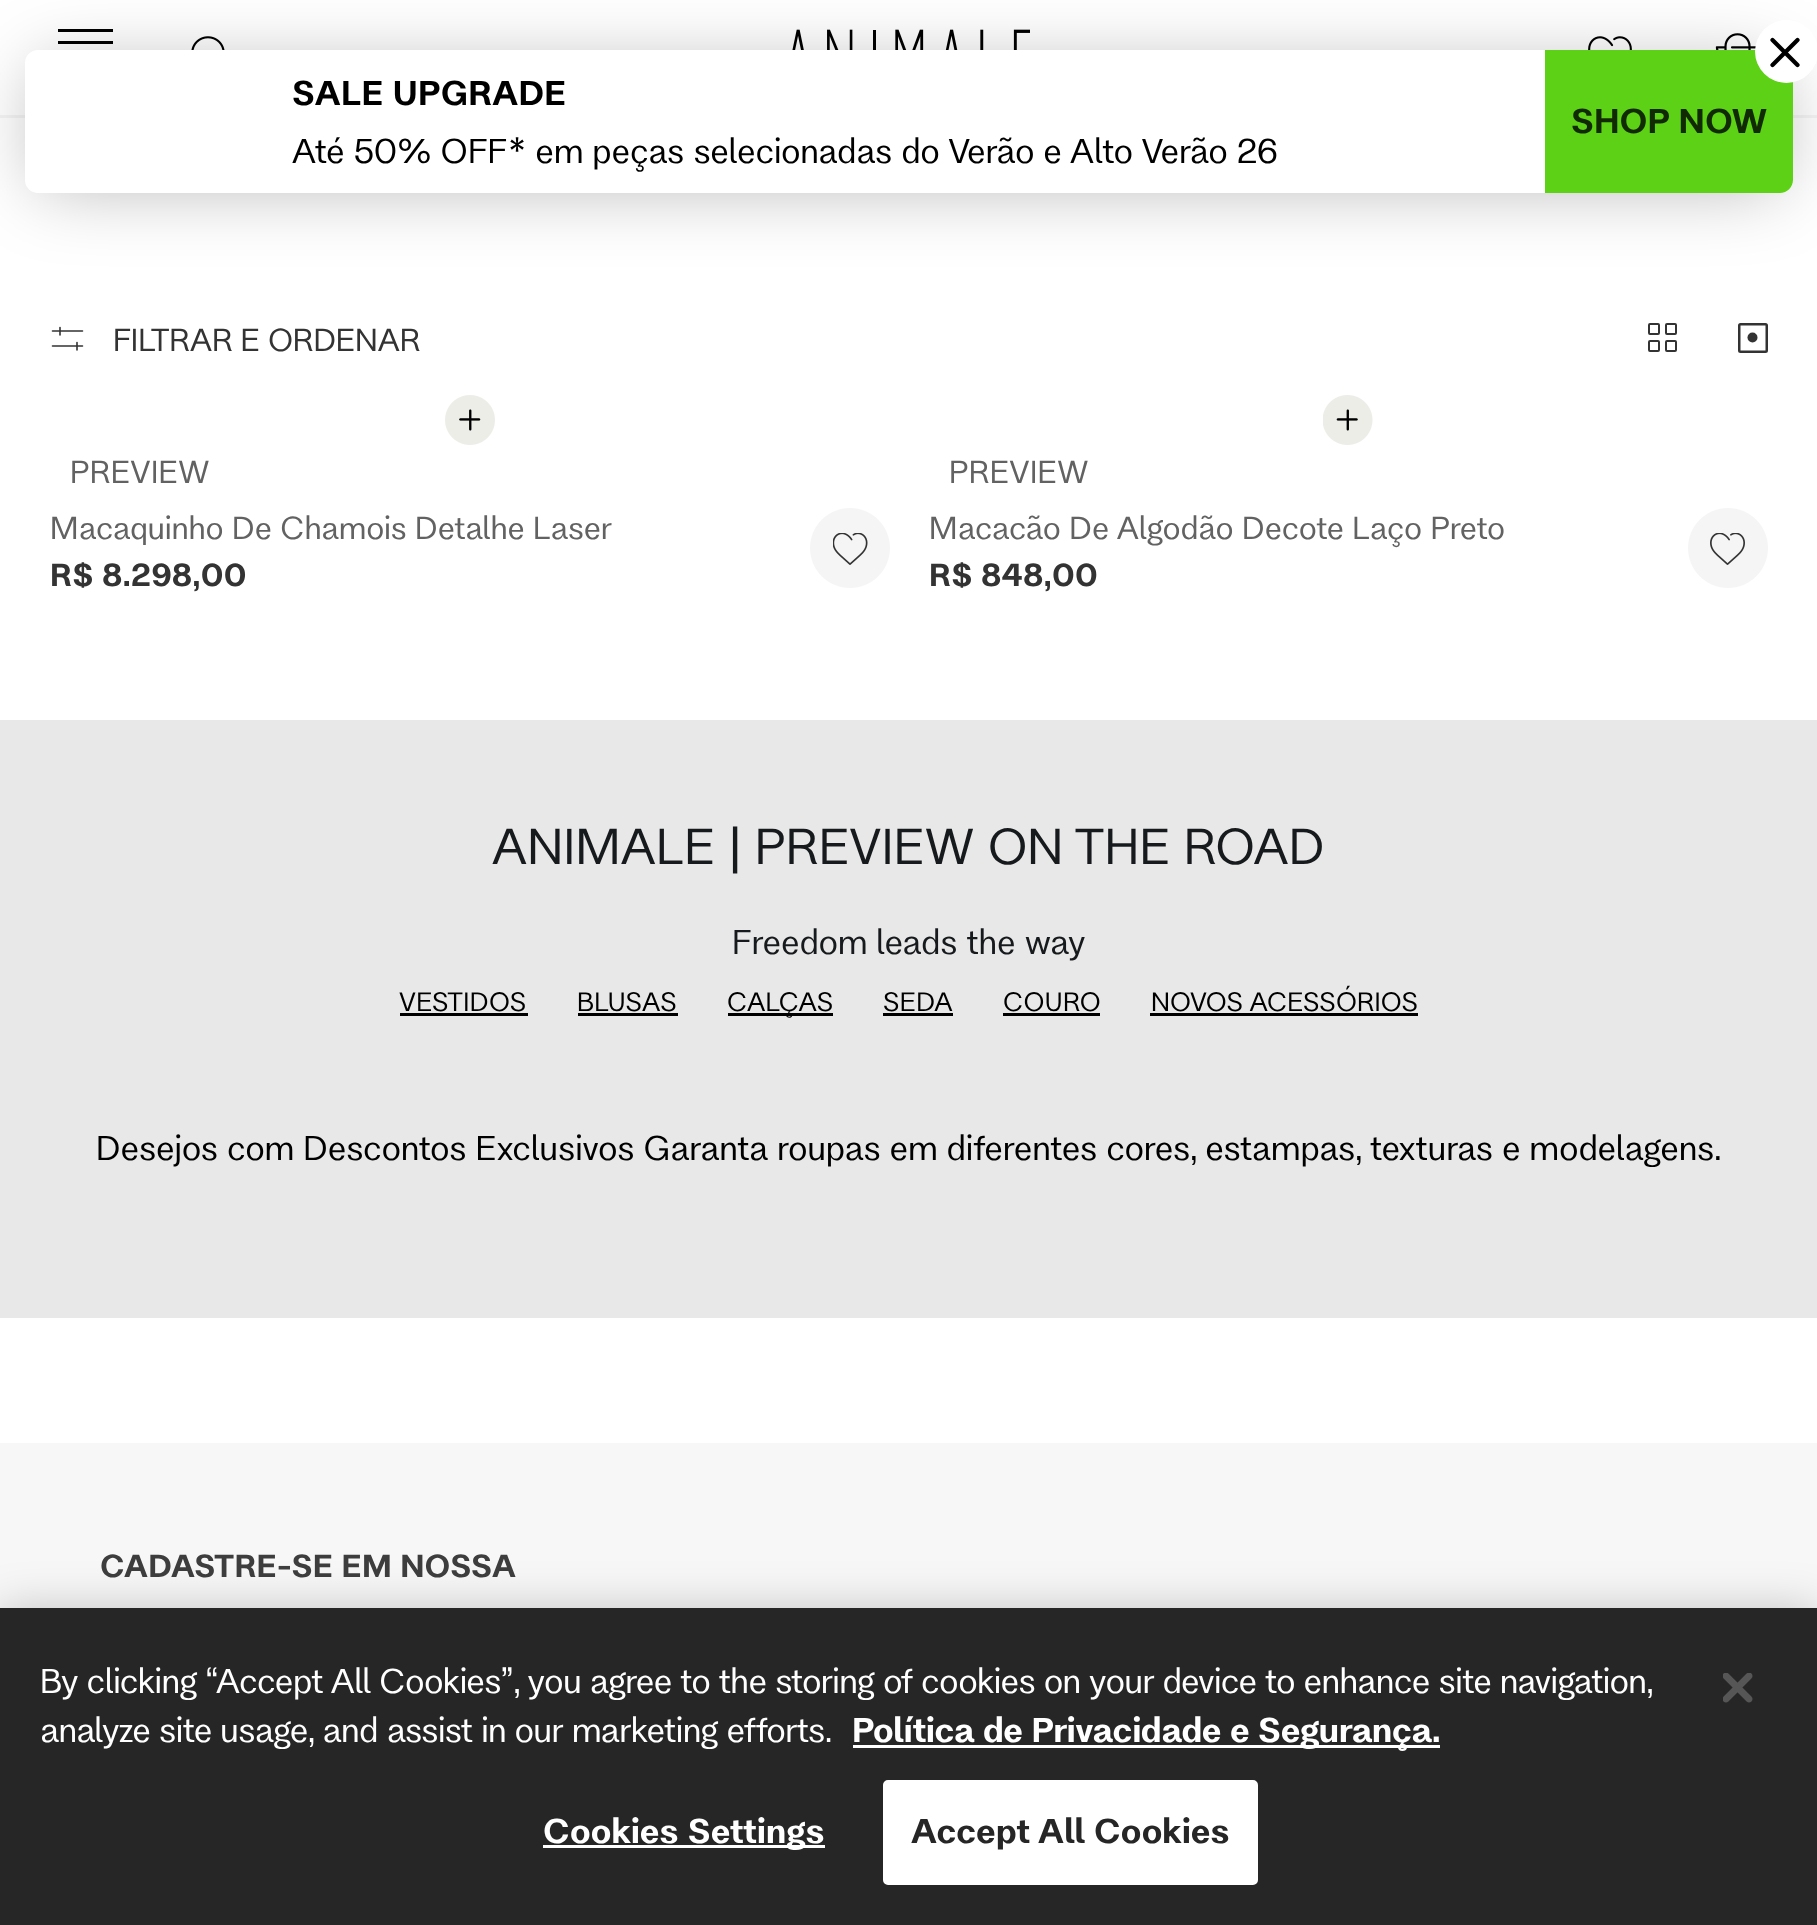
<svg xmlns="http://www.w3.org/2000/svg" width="1817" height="1925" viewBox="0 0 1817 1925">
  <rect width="100%" height="100%" fill="#fff"/>
  <path d="M0 115h1817v3H0z" fill="#f5f5f5"/>
  <path d="M58 29H113V32H58ZM58 41H113V44H58ZM58 53H113V56H58Z" fill="#000"/>
  <image x="191" y="36" width="34" height="14" href="img/1.png"/>
  <image x="792" y="29" width="238" height="21" href="img/2.png"/>
  <image x="1588" y="36" width="44" height="14" href="img/3.png"/>
  <image x="1715" y="33" width="41" height="17" href="img/4.png"/>
  <path d="M38 68h1742v117H38z" fill="#0000004d" filter="blur(37.5px)"/>
  <rect x="25" y="50" width="1768" height="143" rx="13" fill="#fff"/>
  <path d="M1545 50H1780C1787 50 1793 56 1793 63V180C1793 187 1787 193 1780 193H1545Z" fill="#5cd115"/>
  <circle cx="1786.5" cy="51.5" r="31.5" fill="#fff"/>
  <path d="M1797.5 40L1772.5 65M1772.5 40L1797.5 65" fill="none" stroke="#000" stroke-width="4.2" stroke-linecap="round" stroke-linejoin="round"/>
  <path d="M82.5 331H52.5M60 327.5V335M77 342.5V350M82.5 346H52.5" fill="none" stroke="#333" stroke-width="1.6" stroke-linecap="round" stroke-linejoin="round"/>
  <rect x="1649" y="324" width="10" height="10" rx="1" fill="none" stroke="#333" stroke-width="2"/>
  <rect x="1666" y="324" width="10" height="10" rx="1" fill="none" stroke="#333" stroke-width="2"/>
  <rect x="1649" y="341" width="10" height="10" rx="1" fill="none" stroke="#333" stroke-width="2"/>
  <rect x="1666" y="341" width="10" height="10" rx="1" fill="none" stroke="#333" stroke-width="2"/>
  <rect x="1739.25" y="324.25" width="27.5" height="27.5" rx="1.25" fill="none" stroke="#333" stroke-width="2.5"/>
  <circle cx="1752.5" cy="337.5" r="5" fill="#333"/>
  <image x="445" y="395" width="50" height="50" href="img/5.png"/>
  <image x="810" y="508" width="80" height="80" href="img/6.png"/>
  <image x="1323" y="395" width="50" height="50" href="img/7.png"/>
  <image x="1688" y="508" width="80" height="80" href="img/8.png"/>
  <path d="M0 720h1817v598H0z" fill="#e8e8e8"/>
  <path d="M400 1013h128v3H400z" fill="#000"/>
  <path d="M578 1013h100v3H578z" fill="#000"/>
  <path d="M728 1013h105v3H728z" fill="#000"/>
  <path d="M883 1013h70v3H883z" fill="#000"/>
  <path d="M1003 1013h97v3H1003z" fill="#000"/>
  <path d="M1150 1013h268v3H1150z" fill="#000"/>
  <path d="M0 1443h1817v165H0z" fill="#f7f7f7"/>
  <path d="M0 1608h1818v317H0z" fill="#00000033" filter="blur(22.5px)"/>
  <path d="M0 1608h1817v317H0z" fill="#262626"/>
  <path d="M853 1745h587v3H853z" fill="#fff"/>
  <path d="M543 1845h282v3H543z" fill="#fff"/>
  <rect x="884.5" y="1781.5" width="372" height="102" rx="3.5" fill="#fff" stroke="#fff" stroke-width="3"/>
  <image x="1723" y="1673" width="30" height="30" href="img/9.png"/>
  <text x="292" y="105" font-family="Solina" font-size="32.5" font-weight="600" letter-spacing="0.4" fill="#000">SALE UPGRADE</text>
  <text x="1571" y="133" font-family="Solina" font-size="32.5" font-weight="600" letter-spacing="0.4" fill="#122a04">SHOP NOW</text>
  <text x="292" y="163" font-family="Solina" font-size="32.5" letter-spacing="0.4" fill="#000">Até 50% OFF* em peças selecionadas do Verão e Alto Verão 26</text>
  <text x="113" y="351" font-family="Solina" font-size="30" fill="#333">FILTRAR E ORDENAR</text>
  <g font-family="Solina" font-size="30" letter-spacing="0.4" fill="#626262">
    <text x="70" y="483">PREVIEW</text>
    <text x="50" y="539">Macaquinho De Chamois Detalhe Laser</text>
  </g>
  <text x="50" y="586" font-family="Solina" font-size="30" font-weight="600" letter-spacing="0.4" fill="#333">R$ 8.298,00</text>
  <g font-family="Solina" font-size="30" letter-spacing="0.4" fill="#626262">
    <text x="949" y="483">PREVIEW</text>
    <text x="929" y="539">Macacão De Algodão Decote Laço Preto</text>
  </g>
  <text x="929" y="586" font-family="Solina" font-size="30" font-weight="600" letter-spacing="0.4" fill="#333">R$ 848,00</text>
  <text x="492" y="864" font-family="Solina" font-size="47.5" letter-spacing="0.4" fill="#171a1c">ANIMALE | PREVIEW ON THE ROAD</text>
  <text x="732" y="954" font-family="Solina" font-size="32.5" letter-spacing="0.4" fill="#171a1c">Freedom leads the way</text>
  <g font-family="Solina" font-size="25" letter-spacing="0.4" fill="#000">
    <text x="399" y="1011">VESTIDOS</text>
    <text x="577" y="1011">BLUSAS</text>
    <text x="727" y="1011">CALÇAS</text>
    <text x="883" y="1011">SEDA</text>
    <text x="1003" y="1011">COURO</text>
    <text x="1151" y="1011">NOVOS ACESSÓRIOS</text>
  </g>
  <text x="96" y="1160" font-family="Solina" font-size="32.5" letter-spacing="0.4" fill="#000">Desejos com Descontos Exclusivos Garanta roupas em diferentes cores, estampas, texturas e modelagens.</text>
  <text x="100" y="1577" font-family="Solina" font-size="30" font-weight="600" letter-spacing="0.4" fill="#3d3d3d">CADASTRE-SE EM NOSSA</text>
  <g font-family="Solina" font-size="32.5" fill="#fff">
    <text x="40" y="1693" word-spacing="-0.1">By clicking “Accept All Cookies”, you agree to the storing of cookies on your device to enhance site navigation,</text>
    <text x="40" y="1742">analyze site usage, and assist in our marketing efforts.</text>
  </g>
  <text x="852" y="1742" font-family="Solina" font-size="32.5" font-weight="600" fill="#fff">Política de Privacidade e Segurança.</text>
  <text x="543" y="1843" font-family="Solina" font-size="32.5" font-weight="600" letter-spacing="0.3" fill="#fff">Cookies Settings</text>
  <text x="911" y="1843" font-family="Solina" font-size="32.5" font-weight="600" letter-spacing="0.3" fill="#262626">Accept All Cookies</text>
</svg>
